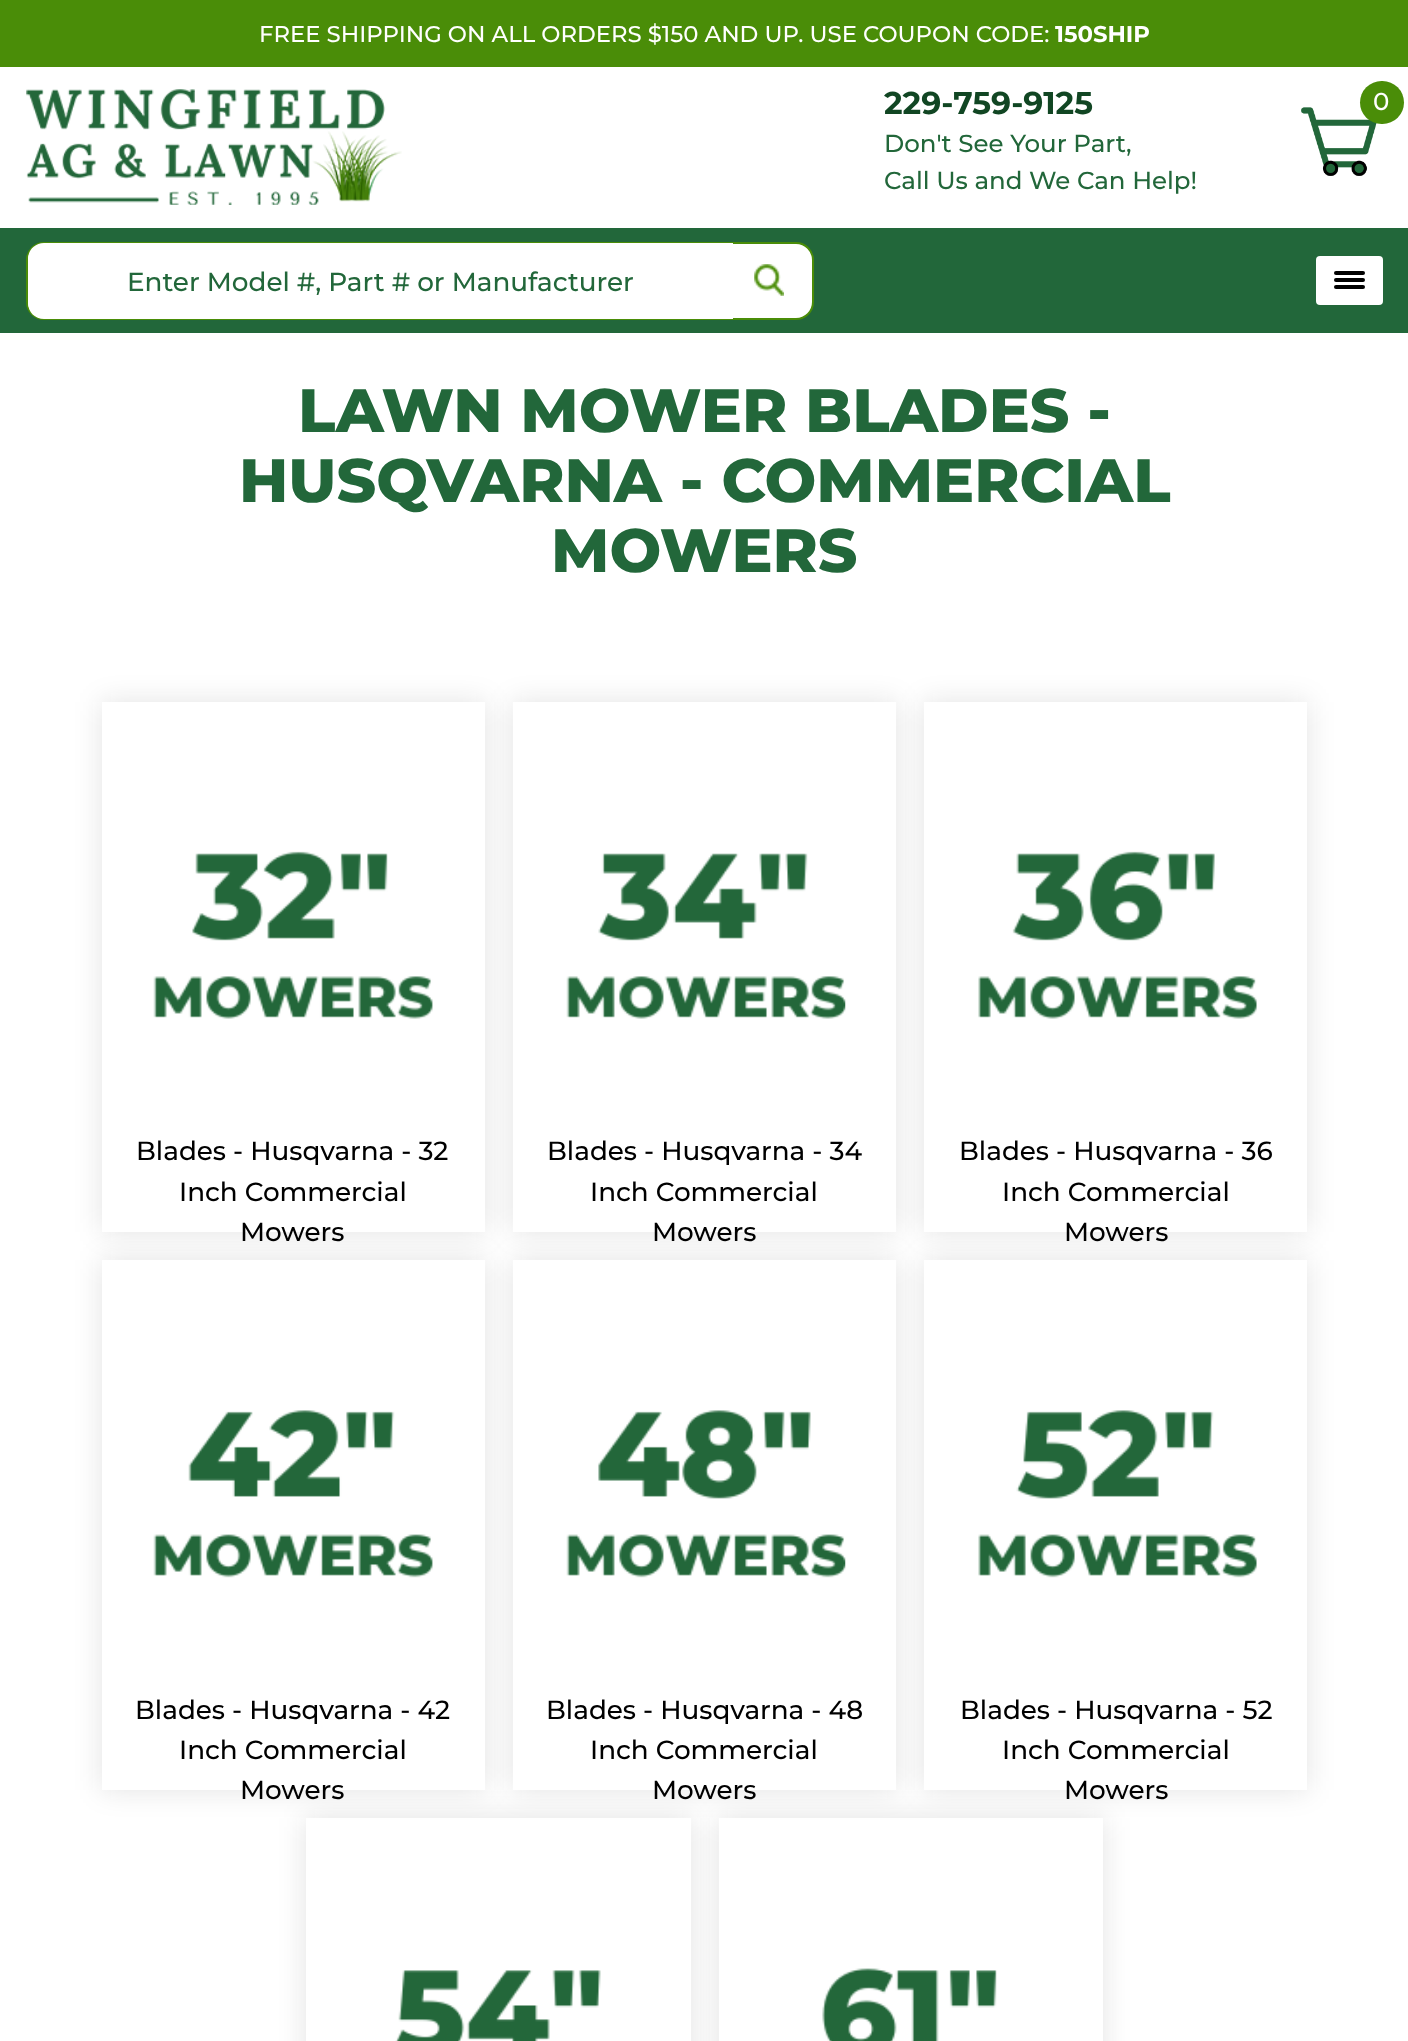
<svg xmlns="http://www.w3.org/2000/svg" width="1408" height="2041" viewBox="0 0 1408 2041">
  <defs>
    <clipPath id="clip1"><path d="M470 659H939V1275H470ZM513 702H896V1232H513Z" clip-rule="evenodd"/></clipPath>
    <clipPath id="clip2"><path d="M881 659H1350V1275H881ZM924 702H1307V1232H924Z" clip-rule="evenodd"/></clipPath>
    <clipPath id="clip3"><path d="M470 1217H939V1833H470ZM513 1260H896V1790H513Z" clip-rule="evenodd"/></clipPath>
    <clipPath id="clip4"><path d="M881 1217H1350V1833H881ZM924 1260H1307V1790H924Z" clip-rule="evenodd"/></clipPath>
  </defs>
  <rect width="100%" height="100%" fill="#fff"/>
  <path d="M0 0h1408v67H0z" fill="#4a8d08"/>
  <image x="26" y="89" width="376" height="116" href="img/1.png"/>
  <image x="1301" y="107" width="76" height="69" href="img/2.png"/>
  <rect x="1360" y="81" width="44" height="43" rx="21.5" fill="#4a8d08"/>
  <path d="M0 228h1408v105H0z" fill="#22673a"/>
  <rect x="27" y="243" width="786" height="76" rx="17" fill="#fff" stroke="#4a8d08" stroke-width="2"/>
  <path d="M44 243H733V319H44C35 319 28 312 28 303V259C28 250 35 243 44 243Z" fill="#fff"/>
  <image x="754" y="264" width="30" height="32" href="img/3.png"/>
  <rect x="1316" y="256" width="67" height="49" rx="4" fill="#fff"/>
  <rect x="1334" y="271" width="31" height="4" rx="2" fill="#000"/>
  <rect x="1334" y="278" width="31" height="4" rx="2" fill="#000"/>
  <rect x="1334" y="285" width="31" height="4" rx="2" fill="#000"/>
  <path d="M102 702h383v530H102z" fill="#1414141f" filter="blur(14px)"/>
  <path d="M102 702h383v530H102z" fill="#fff"/>
  <image x="153" y="851" width="280" height="168" href="img/4.png"/>
  <g clip-path="url(#clip1)">
    <path d="M513 702h383v530H513z" fill="#1414141f" filter="blur(14px)"/>
  </g>
  <image x="566" y="853" width="280" height="166" href="img/5.png"/>
  <g clip-path="url(#clip2)">
    <path d="M924 702h383v530H924z" fill="#1414141f" filter="blur(14px)"/>
  </g>
  <image x="978" y="851" width="279" height="168" href="img/6.png"/>
  <path d="M102 1260h383v530H102z" fill="#1414141f" filter="blur(14px)"/>
  <path d="M102 1260h383v530H102z" fill="#fff"/>
  <image x="153" y="1410" width="280" height="168" href="img/7.png"/>
  <g clip-path="url(#clip3)">
    <path d="M513 1260h383v530H513z" fill="#1414141f" filter="blur(14px)"/>
  </g>
  <image x="566" y="1410" width="280" height="168" href="img/8.png"/>
  <g clip-path="url(#clip4)">
    <path d="M924 1260h383v530H924z" fill="#1414141f" filter="blur(14px)"/>
  </g>
  <image x="978" y="1410" width="279" height="168" href="img/9.png"/>
  <path d="M306 1818h385v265H306z" fill="#1414141f" filter="blur(14px)"/>
  <path d="M306 1818h385v223H306z" fill="#fff"/>
  <image x="395" y="1970" width="206" height="71" href="img/10.png"/>
  <path d="M719 1818h384v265H719z" fill="#1414141f" filter="blur(14px)"/>
  <path d="M719 1818h384v223H719z" fill="#fff"/>
  <image x="822" y="1968" width="175" height="73" href="img/11.png"/>
  <text x="259" y="42" font-family="Montserrat" font-size="22.75" font-weight="500" fill="#fff">FREE SHIPPING ON ALL ORDERS $150 AND UP. USE COUPON CODE:</text>
  <text x="1055" y="42" font-family="Montserrat" font-size="22.75" font-weight="bold" fill="#fff">150SHIP</text>
  <text x="884" y="114" font-family="Montserrat" font-size="31.5" font-weight="bold" fill="#114623">229-759-9125</text>
  <g font-family="Montserrat" font-size="24.5" font-weight="500" fill="#22673a">
    <text x="884" y="152">Don't See Your Part,</text>
    <text x="884" y="189">Call Us and We Can Help!</text>
  </g>
  <text x="1373" y="110" font-family="Montserrat" font-size="24.5" font-weight="500" fill="#fff">0</text>
  <text x="127" y="291" font-family="Montserrat" font-size="26.25" font-weight="500" fill="#22673a">Enter Model #, Part # or Manufacturer</text>
  <g font-family="Montserrat" font-size="61.25" font-weight="800" fill="#22673a">
    <text x="298" y="432">LAWN MOWER BLADES -</text>
    <text x="239" y="502">HUSQVARNA - COMMERCIAL</text>
    <text x="551" y="572">MOWERS</text>
  </g>
  <g font-family="Montserrat" font-size="26.25" font-weight="500" fill="#000">
    <text x="136" y="1160">Blades - Husqvarna - 32</text>
    <text x="179" y="1201">Inch Commercial</text>
    <text x="240" y="1241">Mowers</text>
    <text x="547" y="1160">Blades - Husqvarna - 34</text>
    <text x="590" y="1201">Inch Commercial</text>
    <text x="652" y="1241">Mowers</text>
    <text x="959" y="1160">Blades - Husqvarna - 36</text>
    <text x="1002" y="1201">Inch Commercial</text>
    <text x="1064" y="1241">Mowers</text>
    <text x="135" y="1719">Blades - Husqvarna - 42</text>
    <text x="179" y="1759">Inch Commercial</text>
    <text x="240" y="1799">Mowers</text>
    <text x="546" y="1719">Blades - Husqvarna - 48</text>
    <text x="590" y="1759">Inch Commercial</text>
    <text x="652" y="1799">Mowers</text>
    <text x="960" y="1719">Blades - Husqvarna - 52</text>
    <text x="1002" y="1759">Inch Commercial</text>
    <text x="1064" y="1799">Mowers</text>
  </g>
</svg>
